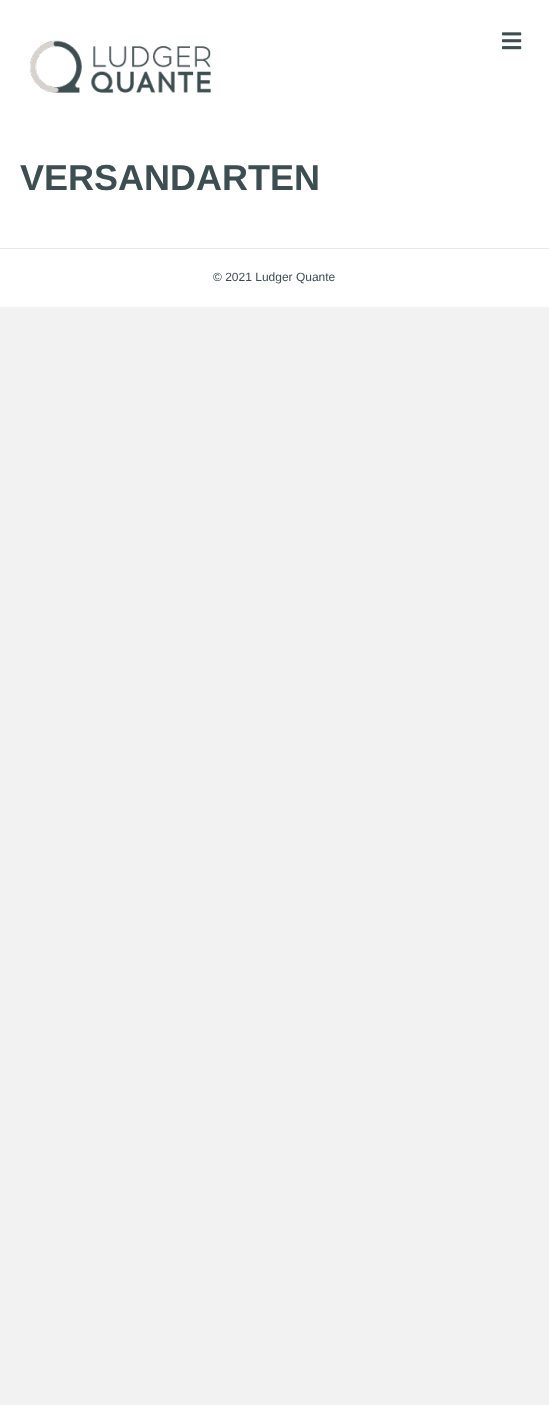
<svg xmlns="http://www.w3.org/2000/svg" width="549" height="1405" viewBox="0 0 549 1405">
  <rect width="100%" height="100%" fill="#f2f2f2"/>
  <path d="M0 0h549v248H0z" fill="#fff"/>
  <image x="30" y="40" width="181" height="53" href="img/1.png"/>
  <image x="502" y="32" width="20" height="18" href="img/2.png"/>
  <path d="M0 249h549v58H0z" fill="#fff"/>
  <path d="M0 248h549v1H0z" fill="#e6e6e6"/>
  <text x="20" y="190" font-family="Liberation Sans" font-size="36" font-weight="bold" fill="#3c4e51">VERSANDARTEN</text>
  <text x="213" y="281" font-family="Liberation Sans" font-size="12" fill="#3c4e51">© 2021 Ludger Quante</text>
</svg>
